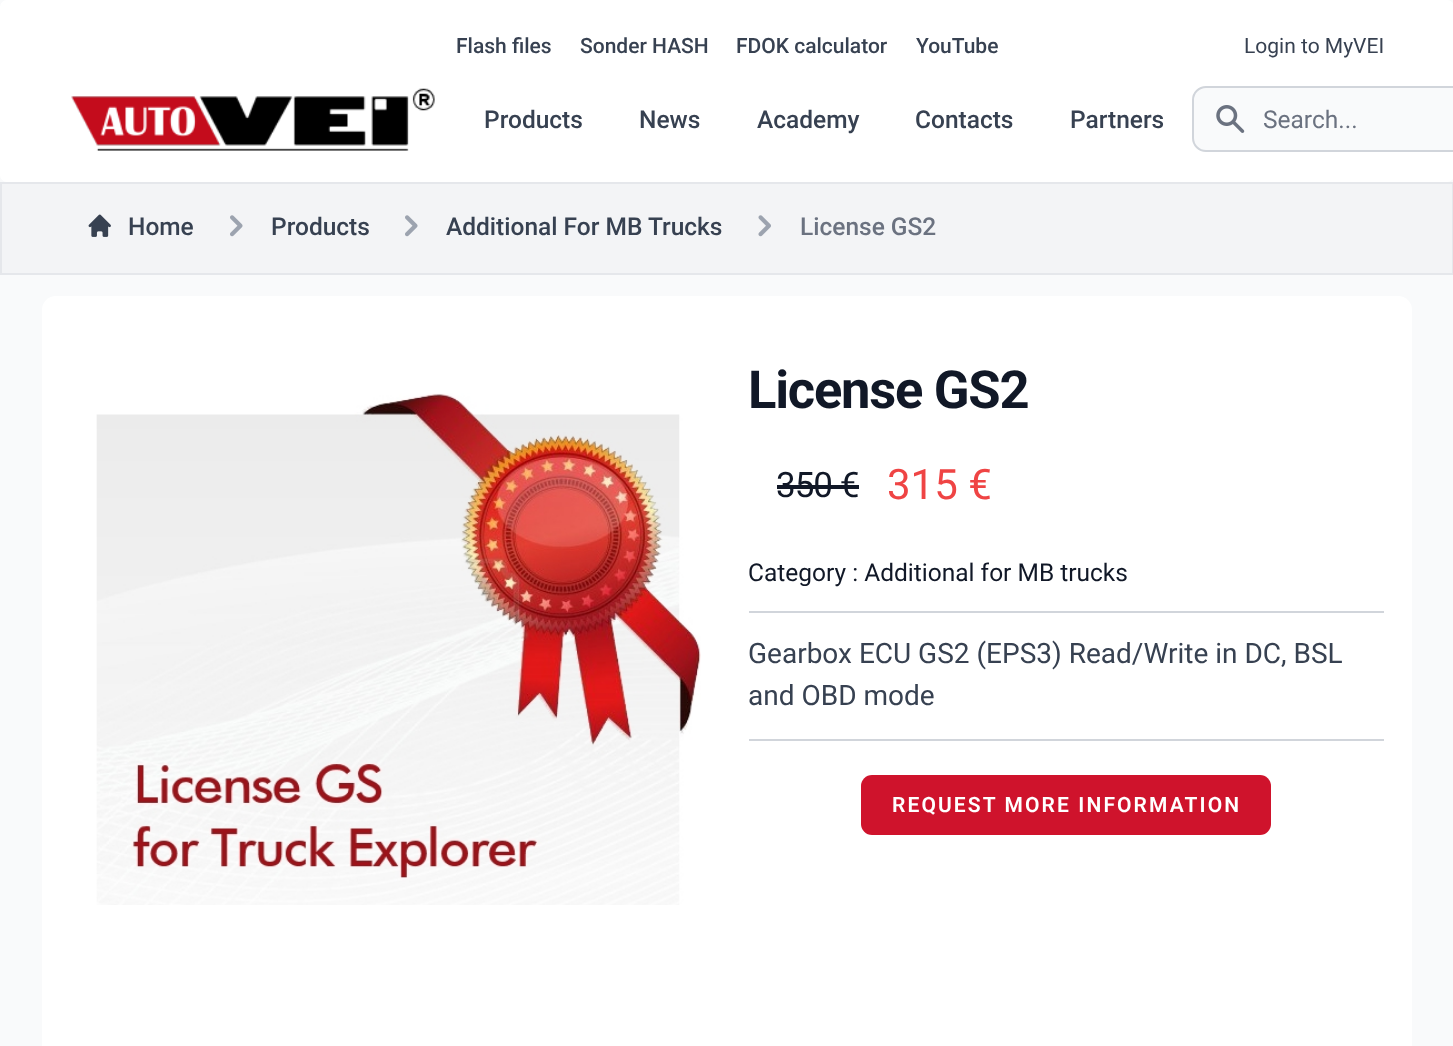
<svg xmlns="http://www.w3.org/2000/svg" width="1453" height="1046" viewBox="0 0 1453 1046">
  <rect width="100%" height="100%" fill="#f9fafb"/>
  <rect width="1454" height="182" rx="7" fill="#fff"/>
  <image x="71" y="88" width="364" height="63" href="img/1.png"/>
  <rect x="1193" y="87" width="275" height="64" rx="13" fill="#f9fafb" stroke="#d1d5db" stroke-width="2"/>
  <image x="1216" y="105" width="29" height="28" href="img/2.png"/>
  <path d="M1 183h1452v91H1z" fill="#f3f4f6" stroke="#e5e7eb" stroke-width="2"/>
  <image x="88" y="214" width="23" height="23" href="img/3.png"/>
  <image x="230" y="215" width="13" height="22" href="img/4.png"/>
  <image x="405" y="215" width="13" height="22" href="img/4.png"/>
  <image x="758" y="215" width="13" height="22" href="img/5.png"/>
  <rect x="42" y="296" width="1370" height="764" rx="14" fill="#fff"/>
  <image x="96" y="393" width="605" height="512" href="img/6.png"/>
  <path d="M777 485h82v4H777z" fill="#111827"/>
  <path d="M749 611h635v2H749z" fill="#d1d5db"/>
  <path d="M749 739h635v2H749z" fill="#d1d5db"/>
  <rect x="861" y="775" width="410" height="60" rx="11" fill="#cf132c"/>
  <g font-family="Roboto" font-size="21" font-weight="500" fill="#374151">
    <text x="456" y="53">Flash files</text>
    <text x="580" y="53">Sonder HASH</text>
    <text x="736" y="53">FDOK calculator</text>
    <text x="916" y="53">YouTube</text>
  </g>
  <text x="1244" y="53" font-family="Roboto" font-size="21" fill="#374151">Login to MyVEI</text>
  <g font-family="Roboto" font-size="24.5" font-weight="500" fill="#374151">
    <text x="484" y="128">Products</text>
    <text x="639" y="128">News</text>
    <text x="757" y="128">Academy</text>
    <text x="915" y="128">Contacts</text>
    <text x="1070" y="128">Partners</text>
  </g>
  <text x="1263" y="128" font-family="Roboto" font-size="24.5" fill="#6b7280">Search...</text>
  <g font-family="Roboto" font-size="24.5" font-weight="500" fill="#374151">
    <text x="128" y="235">Home</text>
    <text x="271" y="235">Products</text>
    <text x="446" y="235">Additional For MB Trucks</text>
  </g>
  <text x="800" y="235" font-family="Roboto" font-size="24.5" font-weight="500" fill="#6b7280">License GS2</text>
  <text x="748" y="408" font-family="Roboto" font-size="52.5" font-weight="bold" letter-spacing="-1.25" fill="#111827">License GS2</text>
  <text x="776" y="497" font-family="Roboto" font-size="35" letter-spacing="-1" fill="#111827">350 €</text>
  <text x="887" y="499" font-family="Roboto" font-size="42" fill="#ef4444">315 €</text>
  <text x="748" y="581" font-family="Roboto" font-size="24.5" fill="#111827">Category : Additional for MB trucks</text>
  <g font-family="Roboto" font-size="28" fill="#374151">
    <text x="748" y="663">Gearbox ECU GS2 (EPS3) Read/Write in DC, BSL</text>
    <text x="748" y="705">and OBD mode</text>
  </g>
  <text x="892" y="812" font-family="Roboto" font-size="21" font-weight="600" letter-spacing="2.1" fill="#fff">REQUEST MORE INFORMATION</text>
</svg>
